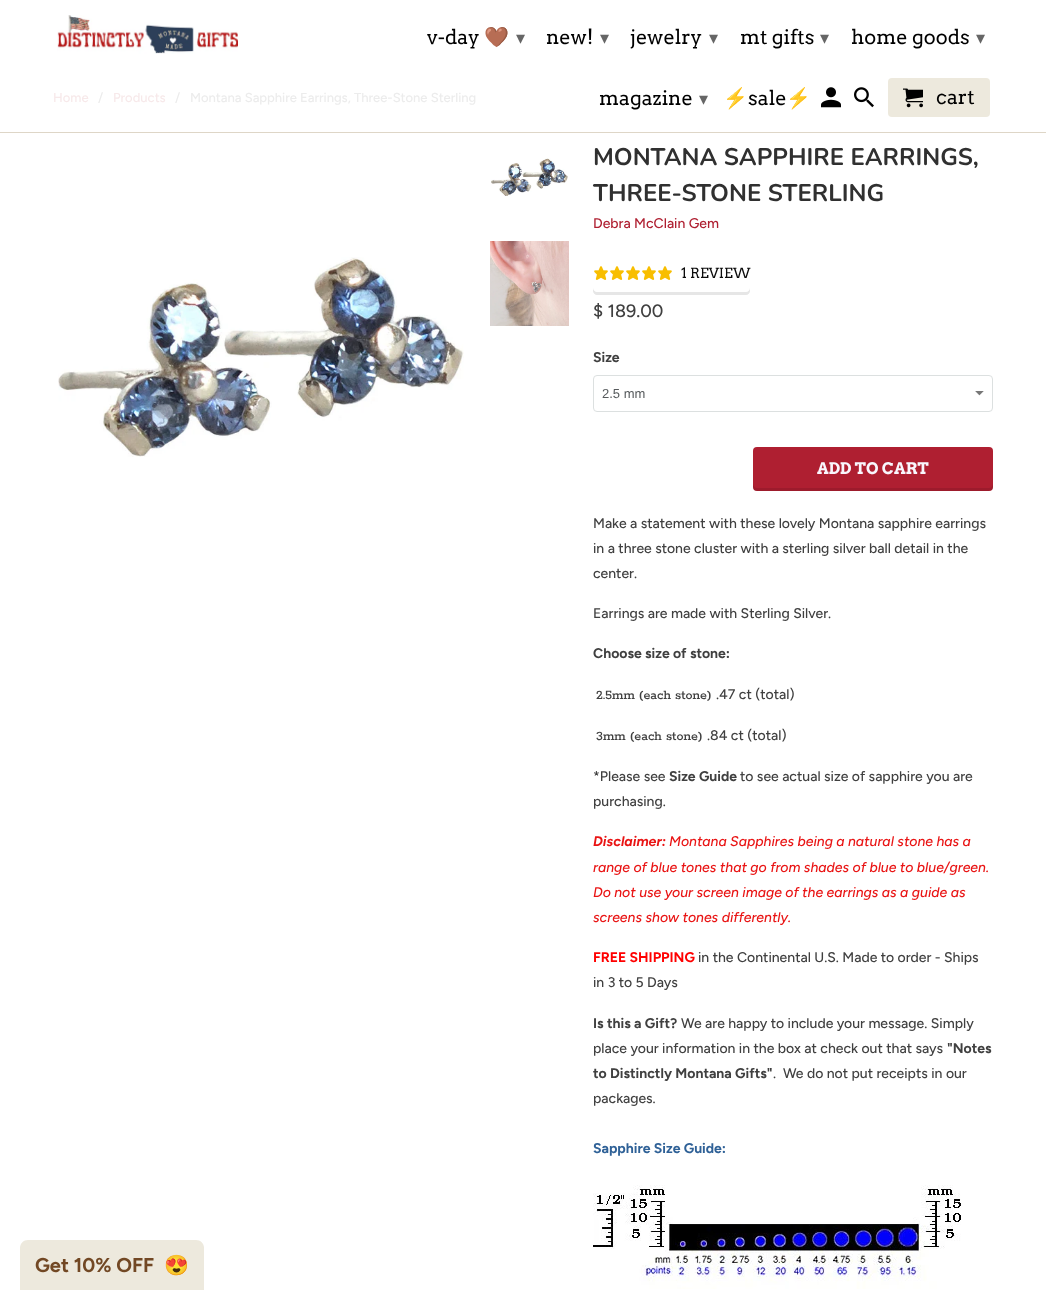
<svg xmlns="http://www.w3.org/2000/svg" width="1046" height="1290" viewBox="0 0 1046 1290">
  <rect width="100%" height="100%" fill="#fff"/>
  <path d="M0 132h1046v1H0z" fill="#ded6c7"/>
  <image x="57" y="15" width="181" height="39" href="img/1.png"/>
  <image x="821" y="87" width="20" height="21" href="img/2.png"/>
  <image x="854" y="87" width="20" height="21" href="img/3.png"/>
  <rect x="888" y="78" width="102" height="39" rx="4" fill="#ede9dd"/>
  <image x="903" y="88" width="20" height="20" href="img/4.png"/>
  <image x="58" y="257" width="406" height="200" href="img/5.png"/>
  <image x="491" y="158" width="77" height="38" href="img/6.png"/>
  <image x="490" y="241" width="79" height="85" href="img/7.png"/>
  <path d="M593 288V291C593 293 595 295 597 295H746C748 295 750 293 750 291V288C750 290 748 292 746 292H597C595 292 593 290 593 288Z" fill="#e6e6e6"/>
  <image x="594" y="266" width="14" height="14" href="img/8.png"/>
  <image x="610" y="266" width="14" height="14" href="img/8.png"/>
  <image x="626" y="266" width="14" height="14" href="img/8.png"/>
  <image x="642" y="266" width="14" height="14" href="img/8.png"/>
  <image x="658" y="266" width="14" height="14" href="img/8.png"/>
  <image x="975" y="391" width="9" height="5" href="img/9.png"/>
  <rect x="593.5" y="375.5" width="399" height="36" rx="3.5" fill="none" stroke="#dce0e0"/>
  <rect x="753" y="447" width="240" height="44" rx="4" fill="#af1f31"/>
  <path d="M753 484V487C753 489 755 491 757 491H989C991 491 993 489 993 487V484C993 486 991 488 989 488H757C755 488 753 486 753 484Z" fill="#0000001a"/>
  <image x="593" y="1185" width="368" height="104" href="img/10.png"/>
  <path d="M28 1240H196C200.5 1240 204 1243.5 204 1248V1290H20V1248C20 1243.5 23.5 1240 28 1240Z" fill="#ede9dd"/>
  <text x="427" y="44" font-family="Arvo" font-size="20" fill="#000">v-day</text>
  <text x="484" y="44" font-family="Noto Color Emoji" font-size="20" fill="#000">🤎</text>
  <text x="516" y="44" font-family="DejaVu Sans" font-size="18" fill="#666">▾</text>
  <text x="546" y="44" font-family="Arvo" font-size="20" fill="#000">new!</text>
  <text x="600" y="44" font-family="DejaVu Sans" font-size="18" fill="#666">▾</text>
  <text x="630" y="44" font-family="Arvo" font-size="20" fill="#000">jewelry</text>
  <text x="709" y="44" font-family="DejaVu Sans" font-size="18" fill="#666">▾</text>
  <text x="740" y="44" font-family="Arvo" font-size="20" fill="#000">mt gifts</text>
  <text x="820" y="44" font-family="DejaVu Sans" font-size="18" fill="#666">▾</text>
  <text x="851" y="44" font-family="Arvo" font-size="20" fill="#000">home goods</text>
  <text x="976" y="44" font-family="DejaVu Sans" font-size="18" fill="#666">▾</text>
  <text x="599" y="105" font-family="Arvo" font-size="20" fill="#000">magazine</text>
  <text x="699" y="105" font-family="DejaVu Sans" font-size="18" fill="#666">▾</text>
  <text x="723" y="105" font-family="Noto Color Emoji" font-size="20" fill="#000">⚡️</text>
  <text x="748" y="105" font-family="Arvo" font-size="20" fill="#000">sale</text>
  <text x="786" y="105" font-family="Noto Color Emoji" font-size="20" fill="#000">⚡️</text>
  <text x="936" y="104" font-family="Arvo" font-size="20" fill="#000">cart</text>
  <text x="53" y="102" font-family="Figtree" font-size="13" font-weight="500" fill="#f7e9ea">Home</text>
  <text x="98" y="102" font-family="Figtree" font-size="13" font-weight="500" fill="#ececec">/</text>
  <text x="113" y="102" font-family="Figtree" font-size="13" font-weight="500" fill="#f7e9ea">Products</text>
  <g font-family="Figtree" font-size="13" font-weight="500" fill="#ececec">
    <text x="175" y="102">/</text>
    <text x="190" y="102">Montana Sapphire Earrings, Three-Stone Sterling</text>
  </g>
  <g font-family="Nunito" font-size="24" font-weight="bold" fill="#303030">
    <text x="593" y="165">MONTANA SAPPHIRE EARRINGS,</text>
    <text x="593" y="201">THREE-STONE STERLING</text>
  </g>
  <text x="593" y="228" font-family="Figtree" font-size="14" font-weight="500" fill="#af1f31">Debra McClain Gem</text>
  <text x="681" y="278" font-family="Arvo" font-size="14" fill="#0b0b0b">1 REVIEW</text>
  <text x="593" y="317" font-family="Figtree" font-size="18" font-weight="500" fill="#404040">$ 189.00</text>
  <text x="593" y="362" font-family="Figtree" font-size="14" font-weight="bold" fill="#404040">Size</text>
  <text x="602" y="398" font-family="Liberation Sans" font-size="13" fill="#565a5c">2.5 mm</text>
  <text x="817" y="474" font-family="Arvo" font-size="16" font-weight="bold" fill="#f9f6fd">ADD TO CART</text>
  <g font-family="Figtree" font-size="14" font-weight="500" fill="#404040">
    <text x="593" y="528">Make a statement with these lovely Montana sapphire earrings</text>
    <text x="593" y="553">in a three stone cluster with a sterling silver ball detail in the</text>
    <text x="593" y="578">center.</text>
    <text x="593" y="618">Earrings are made with Sterling Silver.</text>
  </g>
  <text x="593" y="658" font-family="Figtree" font-size="14" font-weight="bold" fill="#404040">Choose size of stone:</text>
  <text x="596" y="699" font-family="Rokkitt" font-size="14" font-weight="500" fill="#404040">2.5mm (each stone)</text>
  <text x="716" y="699" font-family="Figtree" font-size="14" font-weight="500" fill="#404040">.47 ct (total)</text>
  <text x="596" y="740" font-family="Rokkitt" font-size="14" font-weight="500" fill="#404040">3mm (each stone)</text>
  <g font-family="Figtree" font-size="14" font-weight="500" fill="#404040">
    <text x="707" y="740">.84 ct (total)</text>
    <text x="593" y="781">*Please see</text>
  </g>
  <text x="669" y="781" font-family="Figtree" font-size="14" font-weight="bold" fill="#404040">Size Guide</text>
  <g font-family="Figtree" font-size="14" font-weight="500" fill="#404040">
    <text x="740" y="781">to see actual size of sapphire you are</text>
    <text x="593" y="806">purchasing.</text>
  </g>
  <text x="593" y="846" font-family="Figtree" font-size="14" font-weight="bold" font-style="italic" fill="#e91414">Disclaimer:</text>
  <g font-family="Figtree" font-size="14" font-weight="500" font-style="italic" fill="#e91414">
    <text x="669" y="846">Montana Sapphires being a natural stone has a</text>
    <text x="593" y="872">range of blue tones that go from shades of blue to blue/green.</text>
    <text x="593" y="897">Do not use your screen image of the earrings as a guide as</text>
    <text x="593" y="922">screens show tones differently.</text>
  </g>
  <text x="593" y="962" font-family="Figtree" font-size="14" font-weight="bold" fill="#f00">FREE SHIPPING</text>
  <g font-family="Figtree" font-size="14" font-weight="500" fill="#404040">
    <text x="698" y="962">in the Continental U.S. Made to order - Ships</text>
    <text x="593" y="987">in 3 to 5 Days</text>
  </g>
  <text x="593" y="1028" font-family="Figtree" font-size="14" font-weight="bold" fill="#404040">Is this a Gift?</text>
  <g font-family="Figtree" font-size="14" font-weight="500" fill="#404040">
    <text x="681" y="1028">We are happy to include your message. Simply</text>
    <text x="593" y="1053">place your information in the box at check out that says</text>
  </g>
  <g font-family="Figtree" font-size="14" font-weight="bold" fill="#404040">
    <text x="947" y="1053">"Notes</text>
    <text x="593" y="1078">to Distinctly Montana Gifts"</text>
  </g>
  <g font-family="Figtree" font-size="14" font-weight="500" fill="#404040">
    <text x="773" y="1078" xml:space="preserve">.  We do not put receipts in our</text>
    <text x="593" y="1103">packages.</text>
  </g>
  <text x="593" y="1153" font-family="Figtree" font-size="14" font-weight="bold" fill="#2f6197">Sapphire Size Guide:</text>
  <text x="35" y="1272" font-family="Figtree" font-size="20" font-weight="bold" fill="#724824">Get 10% OFF</text>
  <text x="164" y="1272" font-family="Noto Color Emoji" font-size="20" font-weight="bold" fill="#724824">😍</text>
</svg>
